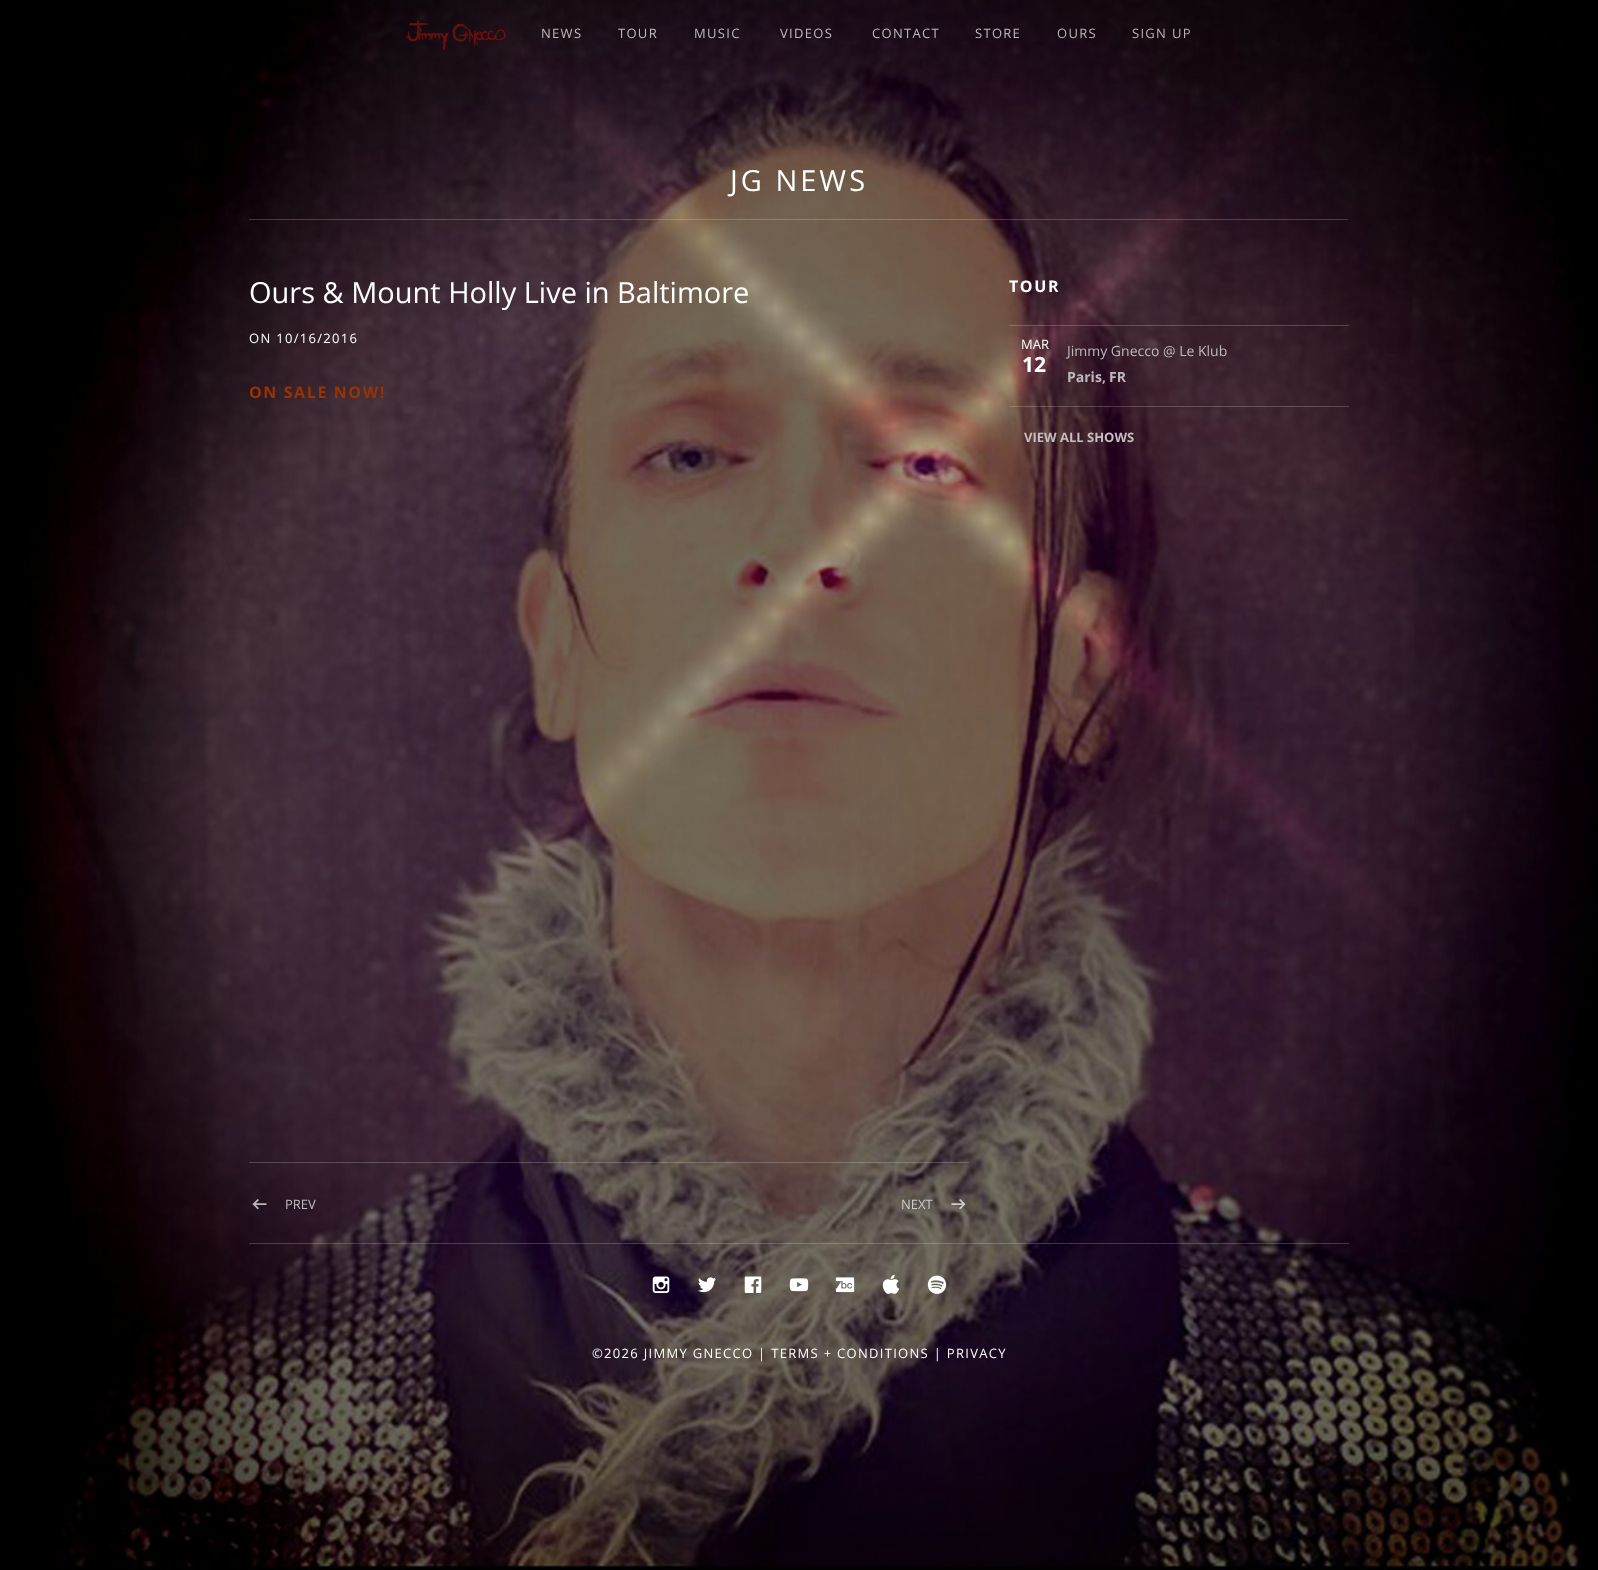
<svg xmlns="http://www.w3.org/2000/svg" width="1598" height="1570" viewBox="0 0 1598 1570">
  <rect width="100%" height="100%" fill="#000"/>
  <image x="14" y="0" width="1584" height="1570" href="img/1.png"/>
  <image x="406" y="20" width="100" height="30" href="img/2.png"/>
  <path d="M249 219h1099v1H249z" fill="#ffffff33"/>
  <path d="M249 1162h720v1H249z" fill="#ffffff33"/>
  <image x="252" y="1199" width="15" height="11" href="img/3.png"/>
  <image x="951" y="1199" width="15" height="11" href="img/4.png"/>
  <path d="M1009 325h340v1H1009z" fill="#ffffff33"/>
  <path d="M1009 406h340v1H1009z" fill="#ffffff33"/>
  <path d="M249 1243h1100v1H249z" fill="#ffffff33"/>
  <image x="652" y="1276" width="18" height="17" href="img/5.png"/>
  <image x="698" y="1277" width="18" height="16" href="img/6.png"/>
  <image x="744" y="1276" width="18" height="17" href="img/7.png"/>
  <image x="789" y="1278" width="20" height="14" href="img/8.png"/>
  <image x="835" y="1277" width="20" height="16" href="img/9.png"/>
  <image x="882" y="1274" width="18" height="20" href="img/10.png"/>
  <image x="927" y="1275" width="20" height="19" href="img/11.png"/>
  <g font-family="Open Sans" font-size="13" letter-spacing="1.3" fill="#bfb9be">
    <text x="541" y="38">NEWS</text>
    <text x="618" y="38">TOUR</text>
    <text x="694" y="38">MUSIC</text>
    <text x="780" y="38">VIDEOS</text>
    <text x="872" y="38">CONTACT</text>
    <text x="975" y="38">STORE</text>
  </g>
  <g font-family="Open Sans" font-size="13" letter-spacing="1.3" fill="#bab5b8">
    <text x="1057" y="38">OURS</text>
    <text x="1132" y="38">SIGN UP</text>
  </g>
  <text x="730" y="191" font-family="Open Sans" font-size="29" letter-spacing="3" fill="#fff">JG NEWS</text>
  <text x="249" y="303" font-family="Open Sans" font-size="29" fill="#fff">Ours &amp; Mount Holly Live in Baltimore</text>
  <text x="249" y="343" font-family="Open Sans" font-size="13" letter-spacing="1.3" fill="#fff">ON 10/16/2016</text>
  <text x="249" y="398" font-family="Open Sans" font-size="16" font-weight="bold" letter-spacing="1.6" fill="#930">ON SALE NOW!</text>
  <text x="285" y="1209" font-family="Open Sans" font-size="13" fill="#bfb9be">PREV</text>
  <text x="901" y="1209" font-family="Open Sans" font-size="13" fill="#cfcdcb">NEXT</text>
  <text x="1009" y="292" font-family="Open Sans" font-size="16" font-weight="bold" letter-spacing="1.6" fill="#fff">TOUR</text>
  <text x="1021" y="349" font-family="Open Sans" font-size="13" fill="#fff">MAR</text>
  <text x="1022" y="372" font-family="Open Sans" font-size="21" font-weight="bold" fill="#fff">12</text>
  <text x="1067" y="356" font-family="Open Sans" font-size="14" fill="#bfb9be">Jimmy Gnecco @ Le Klub</text>
  <g font-family="Open Sans" font-size="14" font-weight="bold" fill="#bfb9be">
    <text x="1067" y="382">Paris</text>
    <text x="1102" y="382">,</text>
    <text x="1109" y="382">FR</text>
  </g>
  <text x="1024" y="442" font-family="Open Sans" font-size="13" font-weight="bold" fill="#c6bdc0">VIEW ALL SHOWS</text>
  <text x="592" y="1358" font-family="Open Sans" font-size="13" letter-spacing="1.3" fill="#fff">©2026 JIMMY GNECCO | TERMS + CONDITIONS | PRIVACY</text>
</svg>
